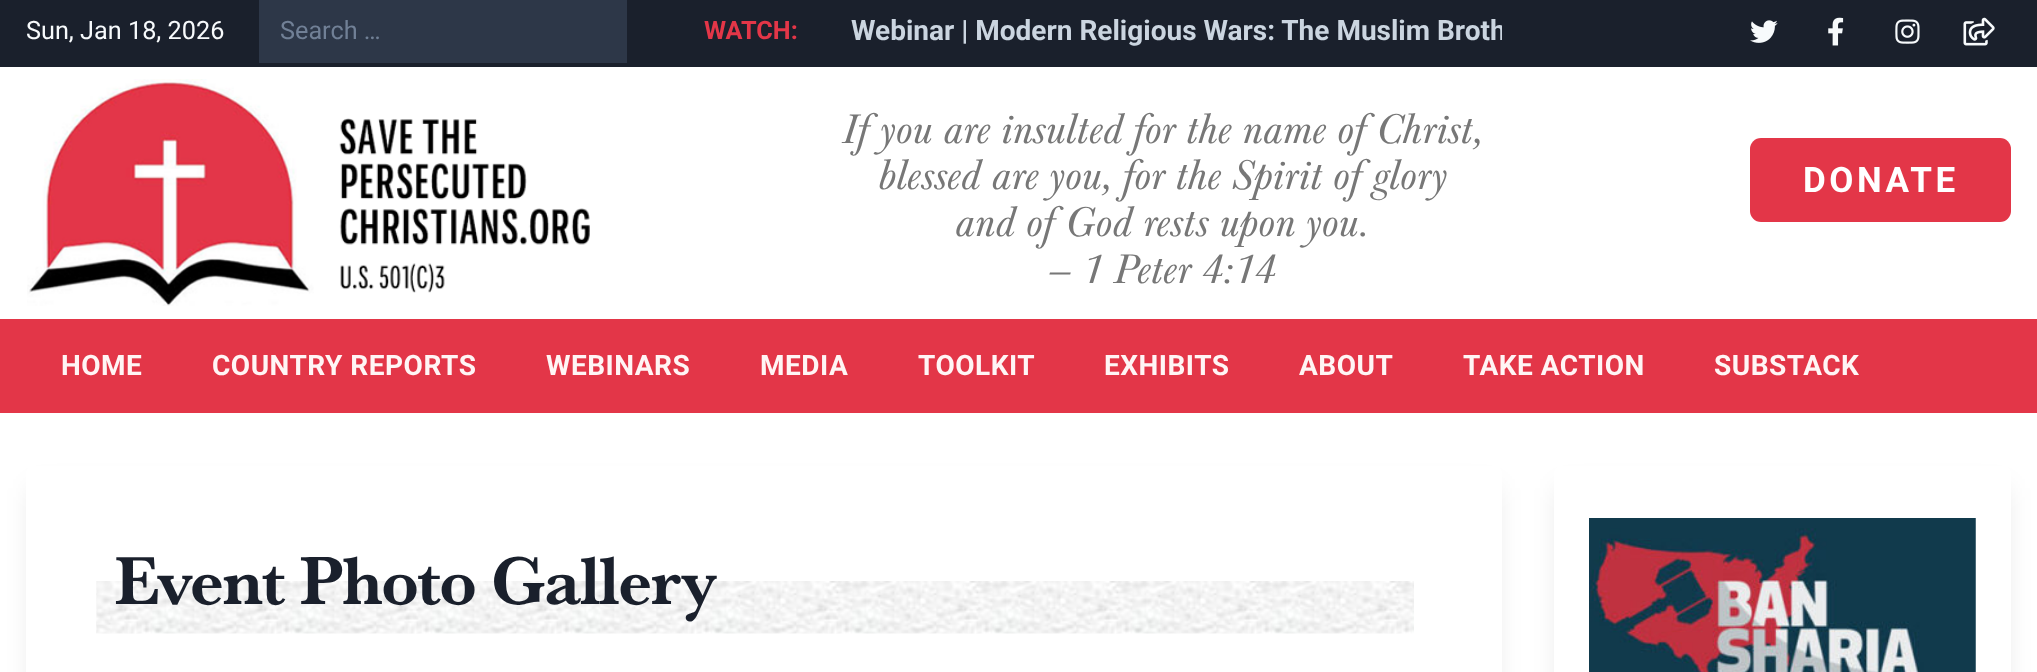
<svg xmlns="http://www.w3.org/2000/svg" width="2037" height="672" viewBox="0 0 2037 672">
  <defs>
    <clipPath id="clip1"><path d="M851 0h651v63H851z"/></clipPath>
  </defs>
  <rect width="100%" height="100%" fill="#fff"/>
  <path d="M0 0h2037v67H0z" fill="#1a202c"/>
  <path d="M259 0h368v63H259z" fill="#2d3748"/>
  <image x="1750" y="20" width="28" height="23" href="img/1.png"/>
  <image x="1828" y="17" width="16" height="29" href="img/2.png"/>
  <image x="1895" y="19" width="25" height="25" href="img/3.png"/>
  <image x="1963" y="17" width="32" height="29" href="img/4.png"/>
  <image x="27" y="79" width="563" height="227" href="img/5.png"/>
  <rect x="1750" y="138" width="261" height="84" rx="11" fill="#e33648"/>
  <path d="M0 319h2037v94H0z" fill="#e33648"/>
  <rect x="32" y="488" width="1464" height="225" rx="2" fill="#0000001a" filter="blur(13px)"/>
  <rect x="26" y="466" width="1476" height="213" rx="7" fill="#fff"/>
  <image x="96" y="581" width="1318" height="53" href="img/6.png"/>
  <rect x="1559" y="488" width="447" height="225" rx="2" fill="#0000001a" filter="blur(13px)"/>
  <rect x="1554" y="466" width="457" height="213" rx="7" fill="#fff"/>
  <image x="1589" y="518" width="387" height="154" href="img/7.png"/>
  <text x="26" y="39" font-family="Roboto" font-size="25.25" fill="#f7fafc">Sun, Jan 18, 2026</text>
  <text x="280" y="39" font-family="Roboto" font-size="25.25" fill="#718096">Search …</text>
  <text x="704" y="39" font-family="Roboto" font-size="25.25" font-weight="bold" fill="#e33648">WATCH:</text>
  <g clip-path="url(#clip1)">
    <text x="851" y="40" font-family="Roboto" font-size="28" font-weight="bold" fill="#cbd5e0">Webinar | Modern Religious Wars: The Muslim Broth</text>
  </g>
  <g font-family="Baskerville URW" font-size="43.1" font-style="italic" fill="#777">
    <text x="842" y="143">If you are insulted for the name of Christ,</text>
    <text x="878" y="189">blessed are you, for the Spirit of glory</text>
    <text x="955" y="236">and of God rests upon you.</text>
    <text x="1049" y="283">— 1 Peter 4:14</text>
  </g>
  <text x="1803" y="192" font-family="Roboto" font-size="35" font-weight="bold" letter-spacing="3.5" fill="#fff">DONATE</text>
  <g font-family="Roboto" font-size="28" font-weight="bold" letter-spacing="0.5" fill="#fff5f5">
    <text x="61" y="375">HOME</text>
    <text x="212" y="375">COUNTRY REPORTS</text>
    <text x="546" y="375">WEBINARS</text>
    <text x="760" y="375">MEDIA</text>
    <text x="918" y="375">TOOLKIT</text>
    <text x="1104" y="375">EXHIBITS</text>
    <text x="1299" y="375">ABOUT</text>
    <text x="1463" y="375">TAKE ACTION</text>
    <text x="1714" y="375">SUBSTACK</text>
  </g>
  <text x="114" y="604" font-family="Baskerville URW" font-size="70" font-weight="bold" letter-spacing="-1.75" fill="#1a202c">Event Photo Gallery</text>
</svg>
